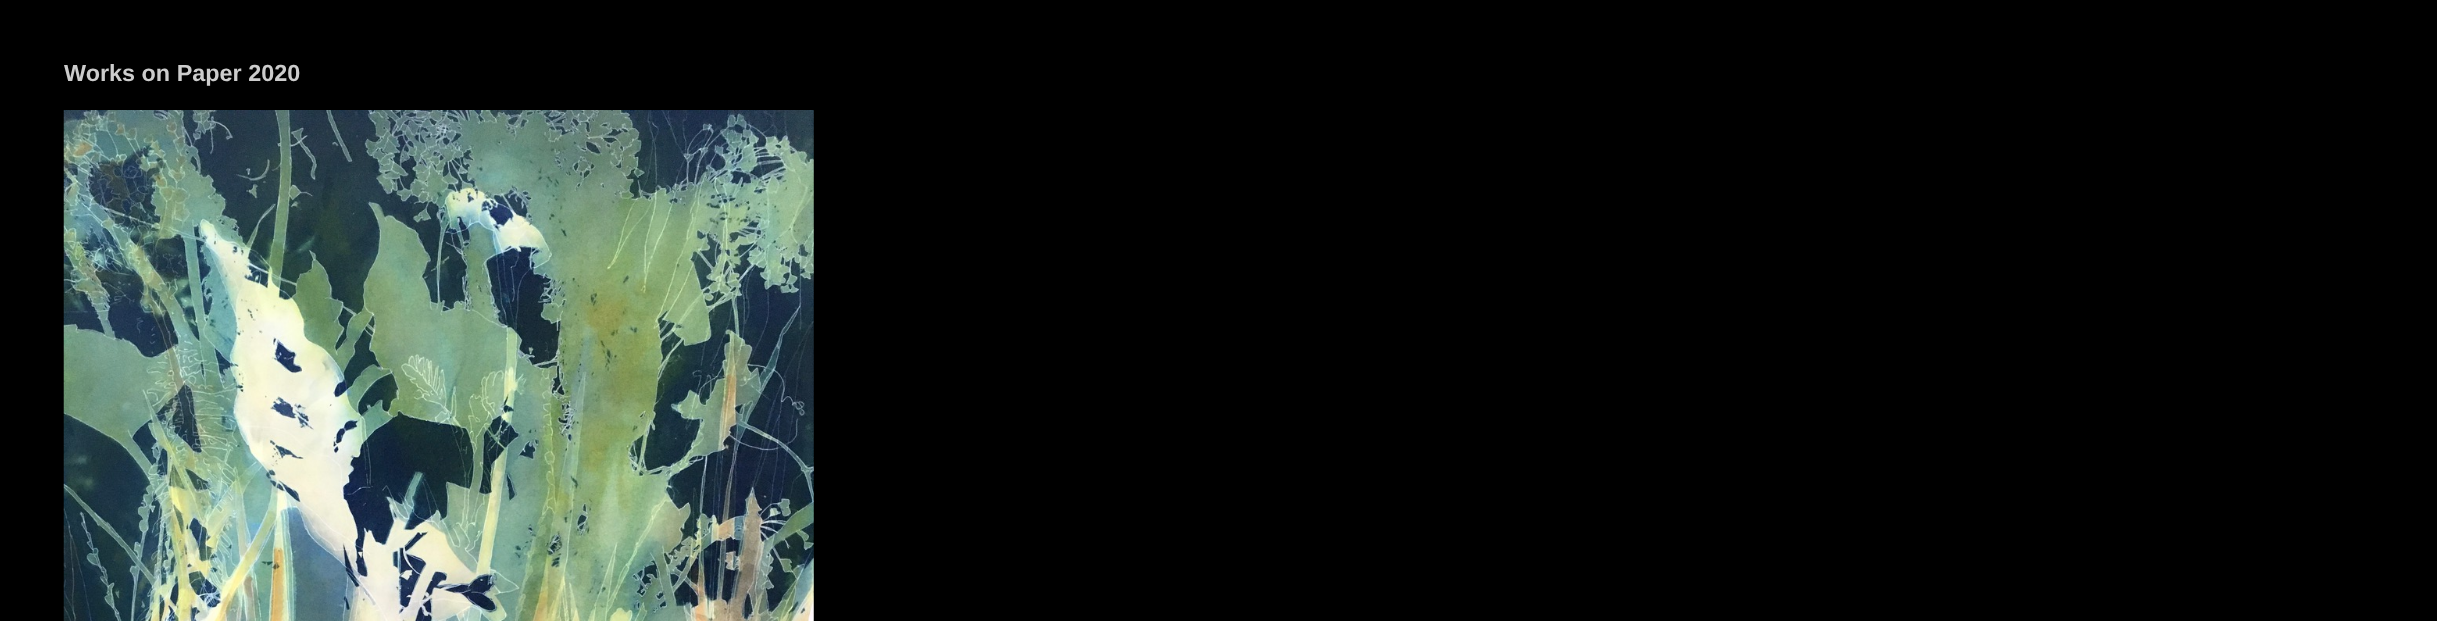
<svg xmlns="http://www.w3.org/2000/svg" width="2437" height="621" viewBox="0 0 2437 621">
  <rect width="100%" height="100%" fill="#000"/>
  <image x="63" y="110" width="751" height="511" href="img/1.png"/>
  <text x="64" y="81" font-family="Liberation Sans" font-size="23.4" font-weight="bold" fill="#ccc">Works on Paper 2020</text>
</svg>
